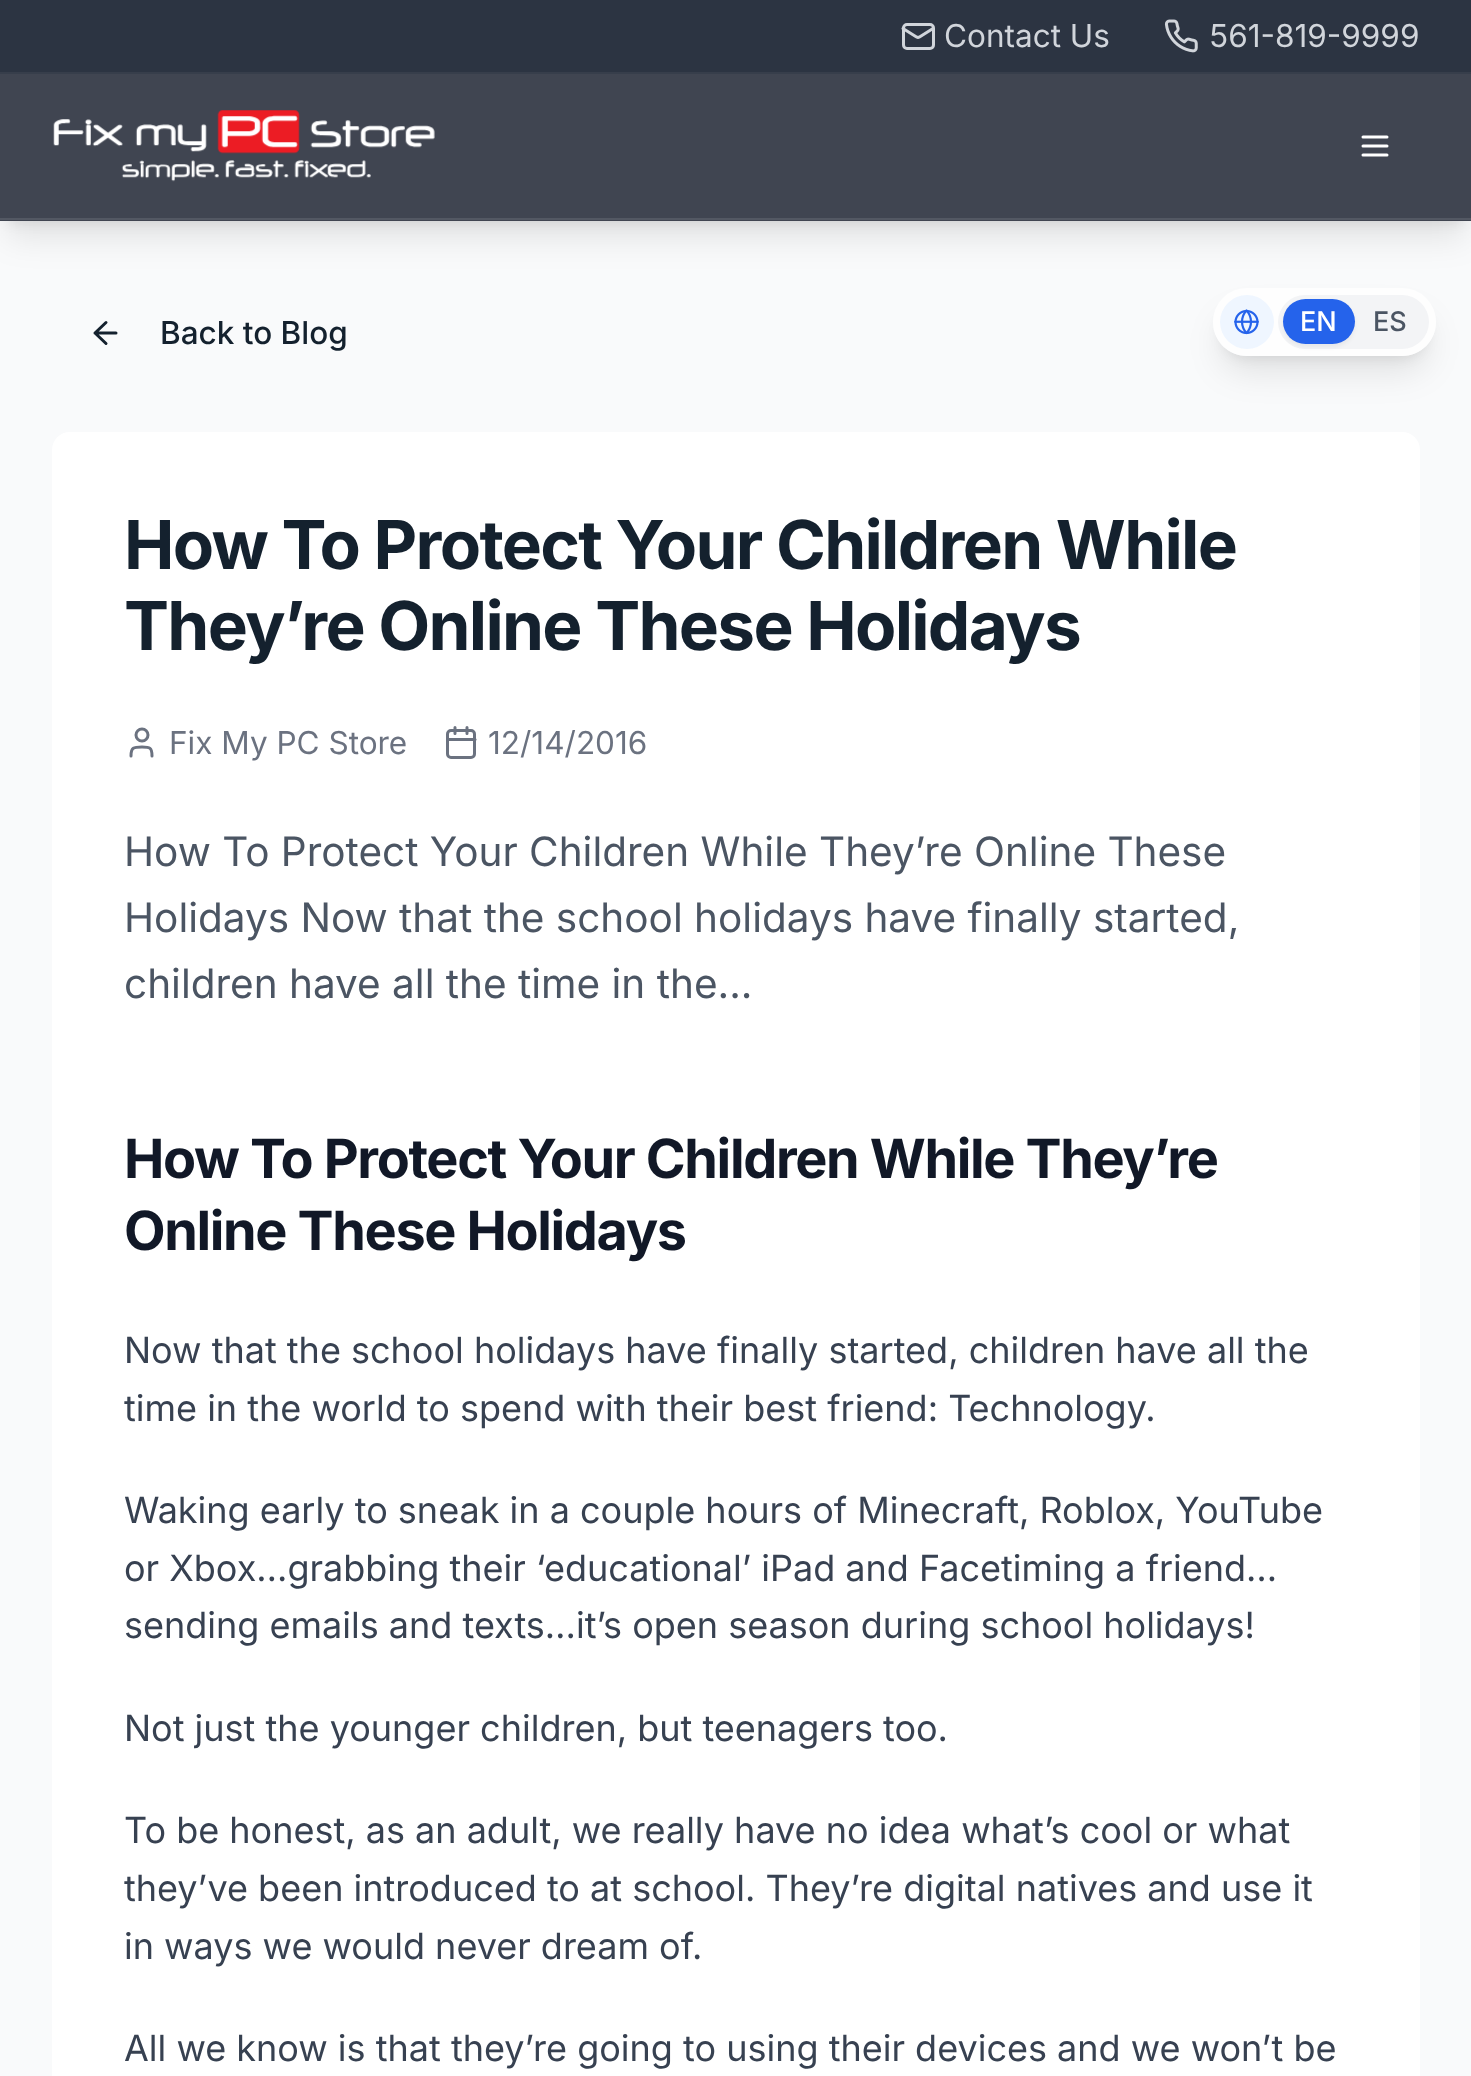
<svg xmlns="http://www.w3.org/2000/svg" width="1471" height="2076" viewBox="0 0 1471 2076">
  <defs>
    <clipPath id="clip1"><path d="M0 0H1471V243H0ZM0 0H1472V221H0Z" clip-rule="evenodd"/></clipPath>
    <clipPath id="clip2"><path d="M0 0H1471V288H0ZM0 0H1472V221H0Z" clip-rule="evenodd"/></clipPath>
    <clipPath id="clip3"><path d="M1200 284H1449V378H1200ZM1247 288H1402C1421 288 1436 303 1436 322C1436 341 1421 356 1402 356H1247C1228 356 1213 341 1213 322C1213 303 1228 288 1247 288Z" clip-rule="evenodd"/></clipPath>
    <clipPath id="clip4"><path d="M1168 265H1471V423H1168ZM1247 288H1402C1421 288 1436 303 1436 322C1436 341 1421 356 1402 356H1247C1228 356 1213 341 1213 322C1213 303 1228 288 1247 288Z" clip-rule="evenodd"/></clipPath>
  </defs>
  <rect width="100%" height="100%" fill="#f9fafb"/>
  <g clip-path="url(#clip1)">
    <path d="M9 18h1454v203H9z" fill="#0000001a" filter="blur(7px)"/>
  </g>
  <g clip-path="url(#clip2)">
    <path d="M7 29h1458v207H7z" fill="#0000001a" filter="blur(17px)"/>
  </g>
  <path d="M0 74h1471v147H0z" fill="#111827cc"/>
  <path d="M0 218h1471v2H0z" fill="#535863"/>
  <path d="M0 0h1471v72H0z" fill="#2c3442"/>
  <path d="M0 72h1471v2H0z" fill="#373e4b"/>
  <rect x="903.5" y="24.5" width="30" height="24" rx="3.5" fill="none" stroke="#d1d5db" stroke-width="3"/>
  <path d="M933 28.5L919.5 37C918.5 37.5 917.5 37.5 916.5 37L903 28.5" fill="none" stroke="#d1d5db" stroke-width="3" stroke-linecap="round" stroke-linejoin="round"/>
  <image x="1164" y="19" width="34" height="34" href="img/1.png"/>
  <image x="53" y="110" width="382" height="72" href="img/2.png"/>
  <path d="M1363 146H1387M1363 137H1387M1363 155H1387" fill="none" stroke="#fff" stroke-width="3" stroke-linecap="round" stroke-linejoin="round"/>
  <path d="M106 343.5L95 333L106 322.5M116 333H95" fill="none" stroke="#14212e" stroke-width="3" stroke-linecap="round" stroke-linejoin="round"/>
  <rect x="52" y="432" width="1368" height="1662" rx="18" fill="#fff"/>
  <path d="M152 756C152 747.5 150 747 142 747C133.5 747 131 747.5 131 756" fill="none" stroke="#6b7280" stroke-width="3" stroke-linecap="round" stroke-linejoin="round"/>
  <circle cx="142" cy="735" r="6" fill="none" stroke="#6b7280" stroke-width="3"/>
  <path d="M455 727.5V733.5M467 727.5V733.5" fill="none" stroke="#6b7280" stroke-width="3" stroke-linecap="round" stroke-linejoin="round"/>
  <rect x="447.5" y="730.5" width="27" height="27" rx="3.5" fill="none" stroke="#6b7280" stroke-width="3"/>
  <path d="M448 739.5H475" fill="none" stroke="#6b7280" stroke-width="3" stroke-linecap="round" stroke-linejoin="round"/>
  <g clip-path="url(#clip3)">
    <rect x="1222" y="306" width="205" height="50" rx="25" fill="#0000001a" filter="blur(7px)"/>
  </g>
  <g clip-path="url(#clip4)">
    <rect x="1220" y="317" width="209" height="54" rx="27" fill="#0000001a" filter="blur(17px)"/>
  </g>
  <rect x="1213" y="288" width="223" height="68" rx="34" fill="#ffffffcc"/>
  <circle cx="1247" cy="322" r="27" fill="#eff6ff"/>
  <image x="1234" y="309" width="25" height="26" href="img/3.png"/>
  <rect x="1278" y="295" width="151" height="54" rx="27" fill="#f3f4f6"/>
  <rect x="1283" y="302" width="72" height="45" rx="22.5" fill="#0000000d" filter="blur(2px)"/>
  <rect x="1283" y="299" width="72" height="45" rx="22.5" fill="#2563eb"/>
  <g font-family="Inter" font-size="31.5" fill="#d1d5db">
    <text x="944" y="47">Contact Us</text>
    <text x="1209" y="47">561-819-9999</text>
  </g>
  <text x="160" y="344" font-family="Inter" font-size="31.5" font-weight="500" fill="#14212e">Back to Blog</text>
  <g font-family="Inter" font-size="67.5" font-weight="bold" letter-spacing="-1.7" fill="#14212e">
    <text x="124" y="569">How To Protect Your Children While</text>
    <text x="124" y="650">They’re Online These Holidays</text>
  </g>
  <g font-family="Inter" font-size="31.5" fill="#6b7280">
    <text x="169" y="754">Fix My PC Store</text>
    <text x="488" y="754">12/14/2016</text>
  </g>
  <g font-family="Inter" font-size="40.5" fill="#4b5563">
    <text x="124" y="866">How To Protect Your Children While They’re Online These</text>
    <text x="124" y="932">Holidays Now that the school holidays have finally started,</text>
    <text x="124" y="998">children have all the time in the...</text>
  </g>
  <g font-family="Inter" font-size="54" font-weight="bold" letter-spacing="-1.35" fill="#111827">
    <text x="124" y="1178">How To Protect Your Children While They’re</text>
    <text x="124" y="1250">Online These Holidays</text>
  </g>
  <g font-family="Inter" font-size="36" fill="#374151">
    <text x="124" y="1363">Now that the school holidays have finally started, children have all the</text>
    <text x="124" y="1421">time in the world to spend with their best friend: Technology.</text>
    <text x="124" y="1523">Waking early to sneak in a couple hours of Minecraft, Roblox, YouTube</text>
    <text x="124" y="1581">or Xbox…grabbing their ‘educational’ iPad and Facetiming a friend…</text>
    <text x="124" y="1638">sending emails and texts…it’s open season during school holidays!</text>
    <text x="124" y="1741">Not just the younger children, but teenagers too.</text>
    <text x="124" y="1843">To be honest, as an adult, we really have no idea what’s cool or what</text>
    <text x="124" y="1901">they’ve been introduced to at school. They’re digital natives and use it</text>
    <text x="124" y="1959">in ways we would never dream of.</text>
    <text x="124" y="2061">All we know is that they’re going to using their devices and we won’t be</text>
  </g>
  <text x="1300" y="331" font-family="Inter" font-size="27" font-weight="500" fill="#fff">EN</text>
  <text x="1373" y="331" font-family="Inter" font-size="27" font-weight="500" fill="#4b5563">ES</text>
</svg>
